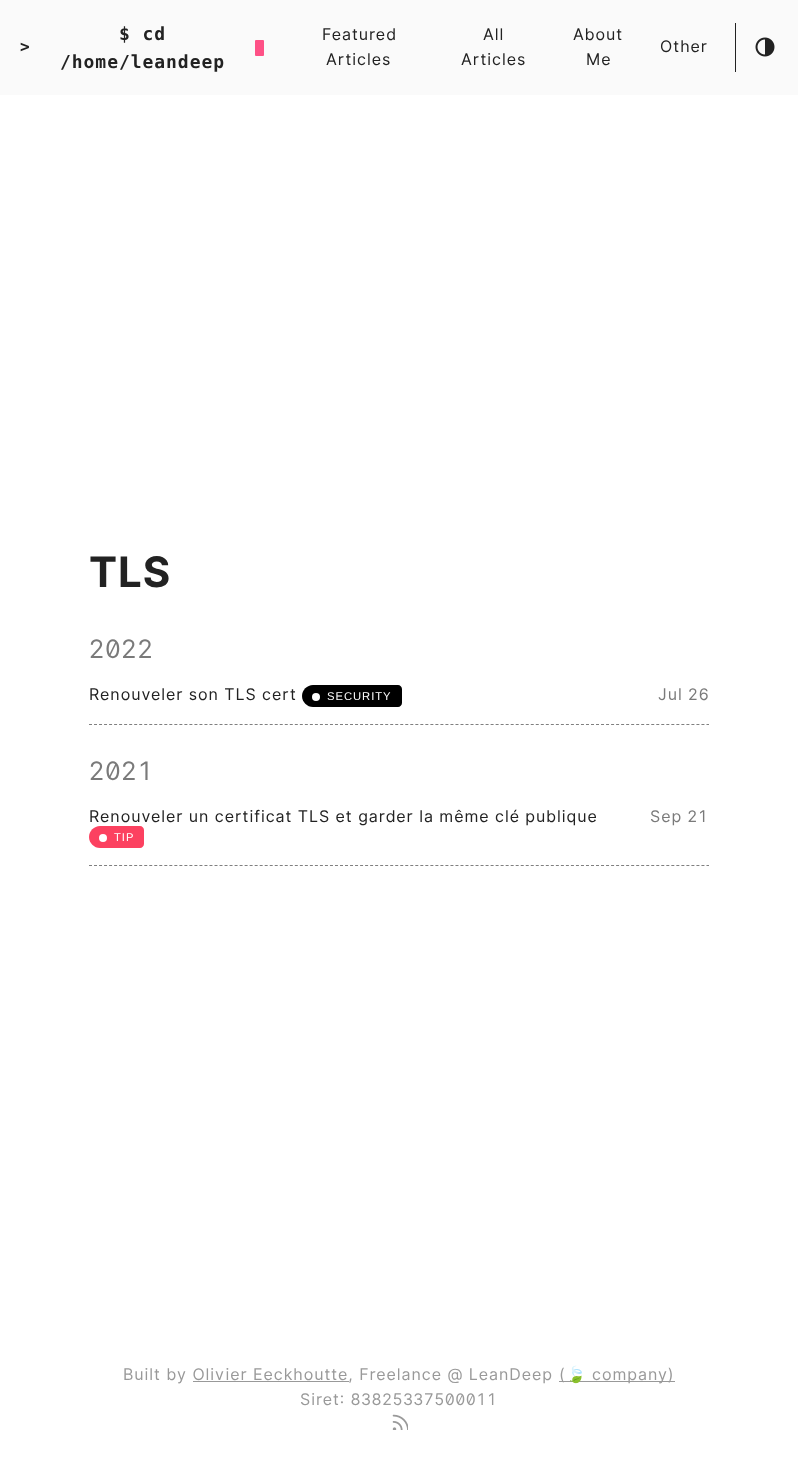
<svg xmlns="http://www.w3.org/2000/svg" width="798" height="1478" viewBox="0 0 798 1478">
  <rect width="100%" height="100%" fill="#fff"/>
  <path d="M0 0h798v95H0z" fill="#fafafa"/>
  <rect x="255" y="40" width="9" height="16" rx="1" fill="#fe5186"/>
  <path d="M735 23h1v49H735z" fill="#222"/>
  <image x="755" y="37" width="20" height="20" href="img/1.png"/>
  <path d="M89 724.5H709" fill="none" stroke="#808080" stroke-dasharray="3 2.02"/>
  <path d="M313 685H398C400 685 402 687 402 689V703C402 705 400 707 398 707H313C307 707 302 702 302 696C302 690 307 685 313 685Z" fill="#000"/>
  <circle cx="316" cy="697" r="4" fill="#fff"/>
  <path d="M89 865.5H709" fill="none" stroke="#808080" stroke-dasharray="3 2.02"/>
  <path d="M100 826H140C142 826 144 828 144 830V844C144 846 142 848 140 848H100C94 848 89 843 89 837C89 831 94 826 100 826Z" fill="#fc4160"/>
  <circle cx="103" cy="838" r="4" fill="#fff"/>
  <path d="M559 1381h116v1H559z" fill="#999"/>
  <path d="M193 1381h156v1H193z" fill="#999"/>
  <image x="392" y="1414" width="16" height="16" href="img/2.png"/>
  <text x="20" y="52" font-family="DejaVu Sans Mono" font-size="16" font-weight="bold" letter-spacing="0.95" fill="#222">&gt;</text>
  <g font-family="DejaVu Sans Mono" font-size="18" font-weight="bold" letter-spacing="0.95" fill="#222">
    <text x="119" y="40">$ cd</text>
    <text x="60" y="68">/home/leandeep</text>
  </g>
  <g font-family="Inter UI" font-size="16" letter-spacing="0.95" fill="#222">
    <text x="322" y="40">Featured</text>
    <text x="326" y="65">Articles</text>
    <text x="483" y="40">All</text>
    <text x="461" y="65">Articles</text>
    <text x="573" y="40">About</text>
    <text x="586" y="65">Me</text>
    <text x="660" y="52">Other</text>
  </g>
  <text x="89" y="587" font-family="Inter UI" font-size="42" font-weight="bold" letter-spacing="0.95" fill="#222">TLS</text>
  <text x="89" y="658" font-family="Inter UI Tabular" font-size="25.5" letter-spacing="0.95" fill="#7a7a7a">2022</text>
  <text x="89" y="700" font-family="Inter UI" font-size="16" letter-spacing="0.95" fill="#222">Renouveler son TLS cert</text>
  <text x="327" y="700" font-family="Liberation Sans" font-size="11.25" letter-spacing="0.95" fill="#fff">SECURITY</text>
  <text x="658" y="700" font-family="Inter UI" font-size="16" letter-spacing="0.95" fill="#7a7a7a">Jul 26</text>
  <text x="89" y="780" font-family="Inter UI Tabular" font-size="25.5" letter-spacing="0.95" fill="#7a7a7a">2021</text>
  <text x="89" y="822" font-family="Inter UI" font-size="16" letter-spacing="0.95" fill="#222">Renouveler un certificat TLS et garder la même clé publique</text>
  <text x="114" y="841" font-family="Liberation Sans" font-size="11.25" letter-spacing="0.95" fill="#fff">TIP</text>
  <text x="650" y="822" font-family="Inter UI Tabular" font-size="16" letter-spacing="0.95" fill="#7a7a7a">Sep 21</text>
  <g font-family="Inter UI" font-size="16" letter-spacing="0.95" fill="#999">
    <text x="123" y="1380">Built by Olivier Eeckhoutte, Freelance @ LeanDeep</text>
    <text x="559" y="1380">(</text>
  </g>
  <text x="566" y="1380" font-family="Noto Color Emoji" font-size="16" letter-spacing="0.95" fill="#999">🍃</text>
  <text x="592" y="1380" font-family="Inter UI" font-size="16" letter-spacing="0.95" fill="#999">company)</text>
  <text x="300" y="1405" font-family="Inter UI Tabular" font-size="16" letter-spacing="0.95" fill="#999">Siret: 83825337500011</text>
</svg>
